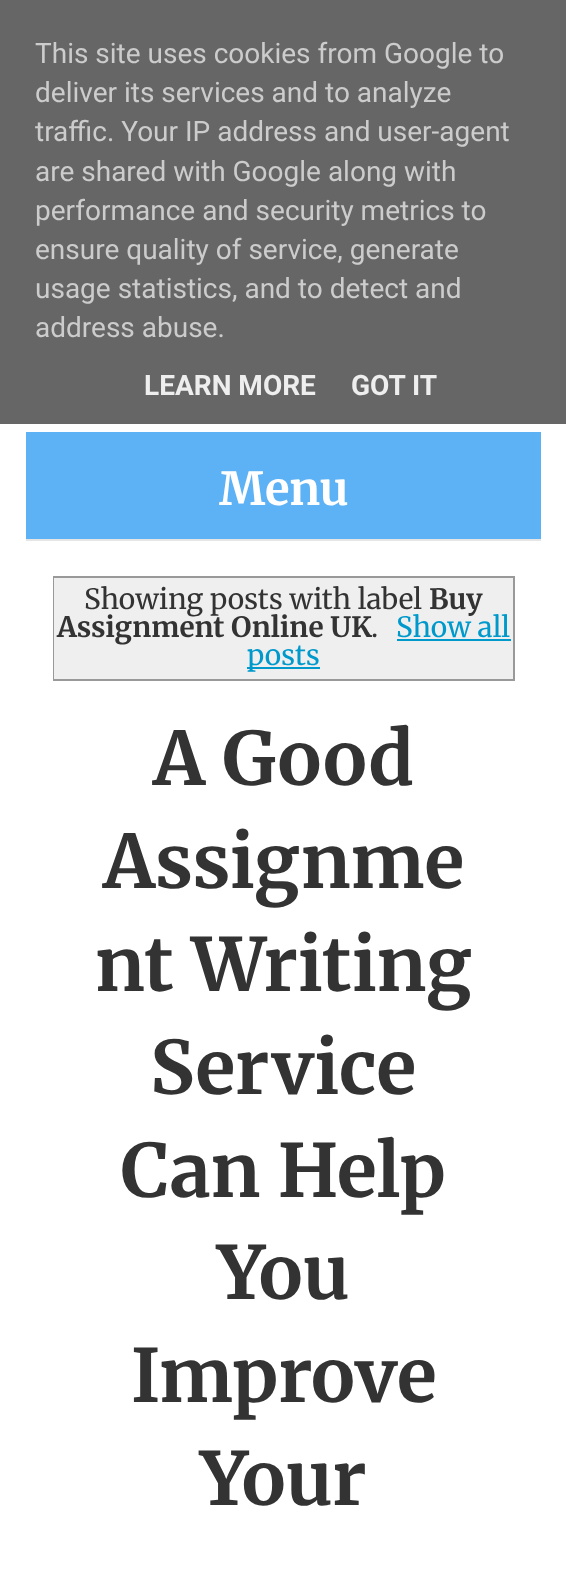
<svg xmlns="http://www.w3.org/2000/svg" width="566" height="1586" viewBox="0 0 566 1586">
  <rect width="100%" height="100%" fill="#fff"/>
  <path d="M0 0h566v424H0z" fill="#666"/>
  <path d="M26 432h515v107H26z" fill="#5db1f5"/>
  <path d="M26 539h515v2H26z" fill="#e5e5e5"/>
  <path d="M54 577h460v103H54z" fill="none" stroke="#999" stroke-width="2"/>
  <path d="M54 578h459v101H54z" fill="#efefef"/>
  <path d="M397 639h114v2H397z" fill="#09c"/>
  <path d="M247 667h73v2H247z" fill="#09c"/>
  <g font-family="Roboto" font-size="28" fill="#ccc">
    <text x="35" y="63">This site uses cookies from Google to</text>
    <text x="35" y="102">deliver its services and to analyze</text>
    <text x="35" y="141">traffic. Your IP address and user-agent</text>
    <text x="35" y="181">are shared with Google along with</text>
    <text x="35" y="220">performance and security metrics to</text>
    <text x="35" y="259">ensure quality of service, generate</text>
    <text x="35" y="298">usage statistics, and to detect and</text>
    <text x="35" y="337">address abuse.</text>
  </g>
  <g font-family="Roboto" font-size="28" font-weight="bold" fill="#eee">
    <text x="144" y="395">LEARN MORE</text>
    <text x="351" y="395">GOT IT</text>
  </g>
  <text x="219" y="505" font-family="Merriweather" font-size="45.5" font-weight="bold" fill="#fff">Menu</text>
  <text x="84" y="609" font-family="Merriweather" font-size="28" fill="#333">Showing posts with label</text>
  <g font-family="Merriweather" font-size="28" font-weight="bold" fill="#333">
    <text x="429" y="609">Buy</text>
    <text x="57" y="637">Assignment Online UK</text>
  </g>
  <text x="371" y="637" font-family="Merriweather" font-size="28" fill="#333">.</text>
  <g font-family="Merriweather" font-size="28" fill="#09c">
    <text x="396" y="637">Show all</text>
    <text x="247" y="665">posts</text>
  </g>
  <g font-family="Merriweather" font-size="73.5" font-weight="bold" fill="#333">
    <text x="153" y="785">A Good</text>
    <text x="103" y="888">Assignme</text>
    <text x="95" y="991">nt Writing</text>
    <text x="150" y="1094">Service</text>
    <text x="121" y="1197">Can Help</text>
    <text x="217" y="1299">You</text>
    <text x="131" y="1402">Improve</text>
    <text x="200" y="1505">Your</text>
  </g>
</svg>
